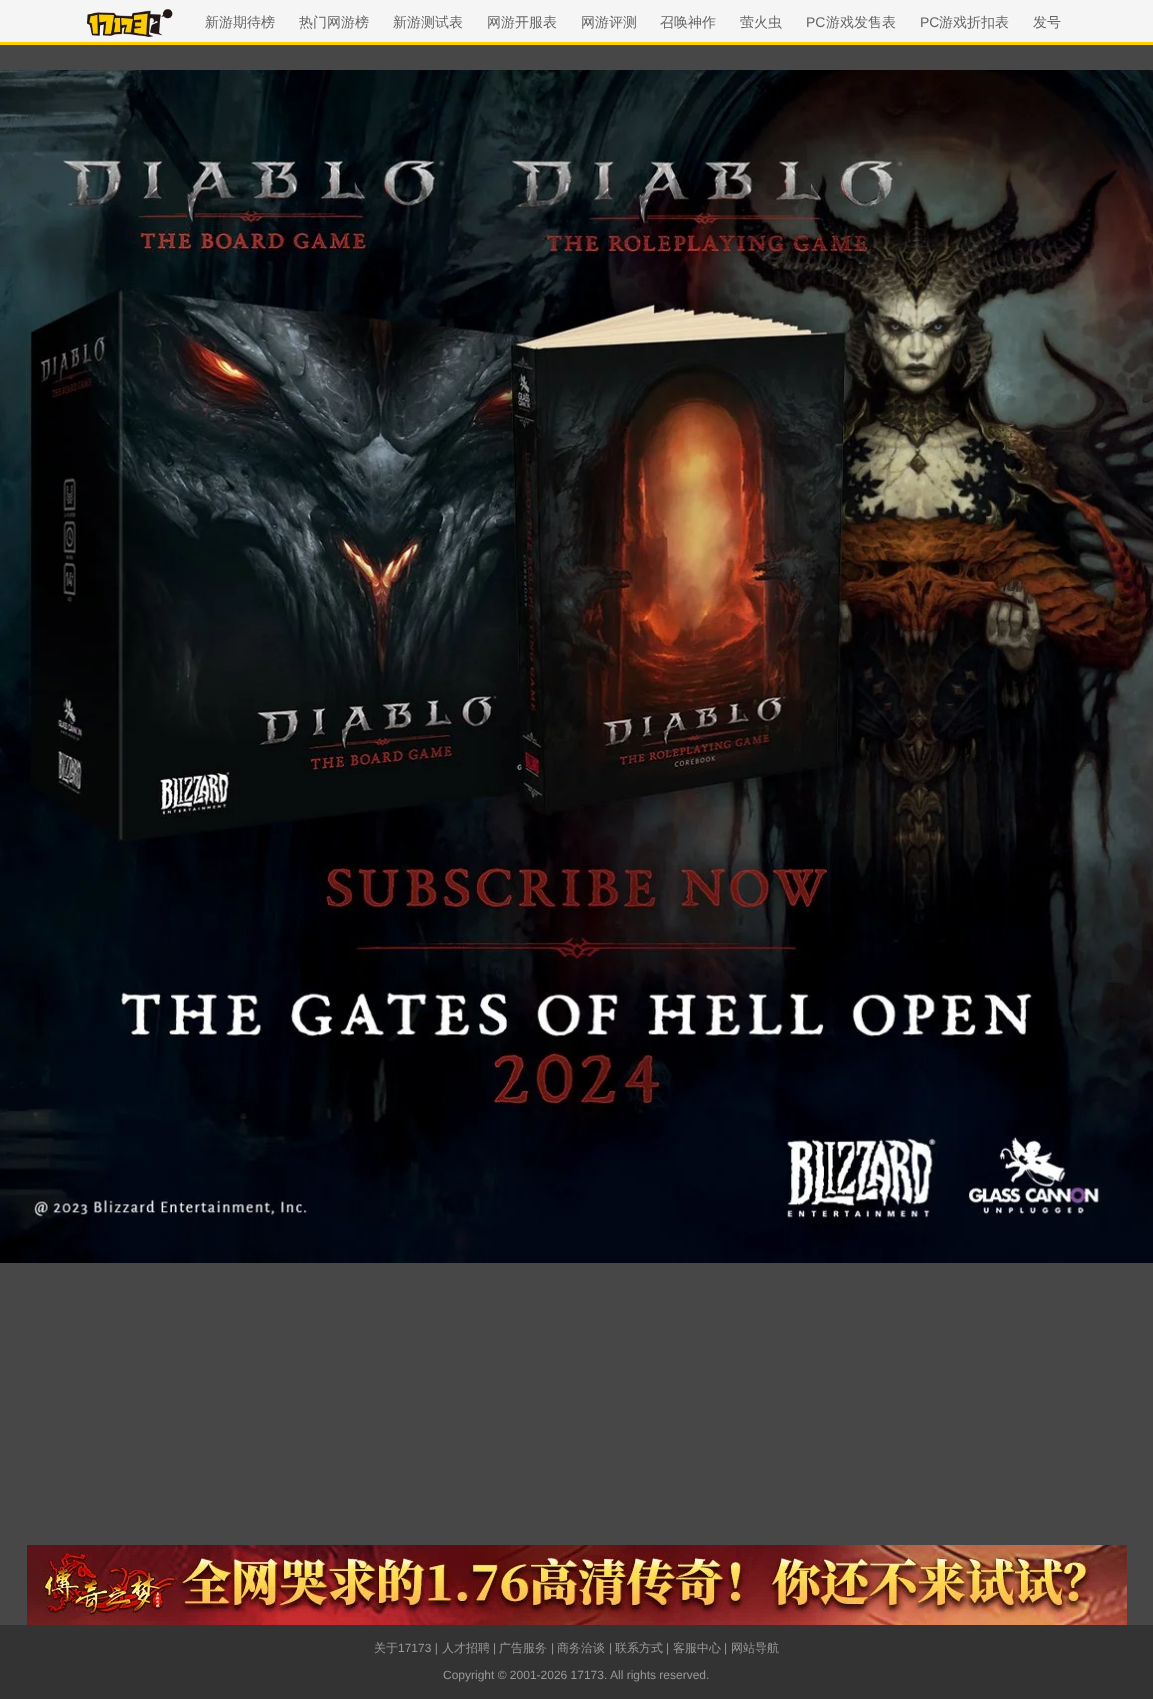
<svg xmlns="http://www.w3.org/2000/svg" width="1153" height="1699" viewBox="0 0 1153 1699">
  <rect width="100%" height="100%" fill="#474747"/>
  <path d="M0 0h1153v42H0z" fill="#f5f5f5"/>
  <path d="M0 42h1153v3H0z" fill="#ffcd00"/>
  <image x="87" y="9" width="86" height="28" href="img/1.png"/>
  <image x="0" y="70" width="1153" height="1193" href="img/2.png"/>
  <image x="27" y="1545" width="1100" height="80" href="img/3.png"/>
  <path d="M0 1625h1153v74H0z" fill="#333"/>
  <g font-family="WenQuanYi Zen Hei" font-size="14" font-weight="500" fill="#666">
    <text x="205" y="27">新游期待榜</text>
    <text x="299" y="27">热门网游榜</text>
    <text x="393" y="27">新游测试表</text>
    <text x="487" y="27">网游开服表</text>
    <text x="581" y="27">网游评测</text>
    <text x="660" y="27">召唤神作</text>
    <text x="740" y="27">萤火虫</text>
  </g>
  <text x="806" y="27" font-family="Liberation Sans" font-size="14" fill="#666">PC</text>
  <text x="826" y="27" font-family="WenQuanYi Zen Hei" font-size="14" font-weight="500" fill="#666">游戏发售表</text>
  <text x="920" y="27" font-family="Liberation Sans" font-size="14" fill="#666">PC</text>
  <g font-family="WenQuanYi Zen Hei" font-size="14" font-weight="500" fill="#666">
    <text x="939" y="27">游戏折扣表</text>
    <text x="1033" y="27">发号</text>
  </g>
  <text x="374" y="1652" font-family="WenQuanYi Zen Hei" font-size="12" font-weight="500" fill="#999">关于</text>
  <text x="398" y="1652" font-family="Liberation Sans" font-size="12" fill="#999">17173 |</text>
  <text x="442" y="1652" font-family="WenQuanYi Zen Hei" font-size="12" font-weight="500" fill="#999">人才招聘</text>
  <text x="493" y="1652" font-family="Liberation Sans" font-size="12" fill="#999">|</text>
  <text x="499" y="1652" font-family="WenQuanYi Zen Hei" font-size="12" font-weight="500" fill="#999">广告服务</text>
  <text x="551" y="1652" font-family="Liberation Sans" font-size="12" fill="#999">|</text>
  <text x="557" y="1652" font-family="WenQuanYi Zen Hei" font-size="12" font-weight="500" fill="#999">商务洽谈</text>
  <text x="609" y="1652" font-family="Liberation Sans" font-size="12" fill="#999">|</text>
  <text x="615" y="1652" font-family="WenQuanYi Zen Hei" font-size="12" font-weight="500" fill="#999">联系方式</text>
  <text x="666" y="1652" font-family="Liberation Sans" font-size="12" fill="#999">|</text>
  <text x="673" y="1652" font-family="WenQuanYi Zen Hei" font-size="12" font-weight="500" fill="#999">客服中心</text>
  <text x="724" y="1652" font-family="Liberation Sans" font-size="12" fill="#999">|</text>
  <text x="731" y="1652" font-family="WenQuanYi Zen Hei" font-size="12" font-weight="500" fill="#999">网站导航</text>
  <text x="443" y="1679" font-family="Liberation Sans" font-size="12" fill="#999">Copyright © 2001-2026 17173. All rights reserved.</text>
</svg>
